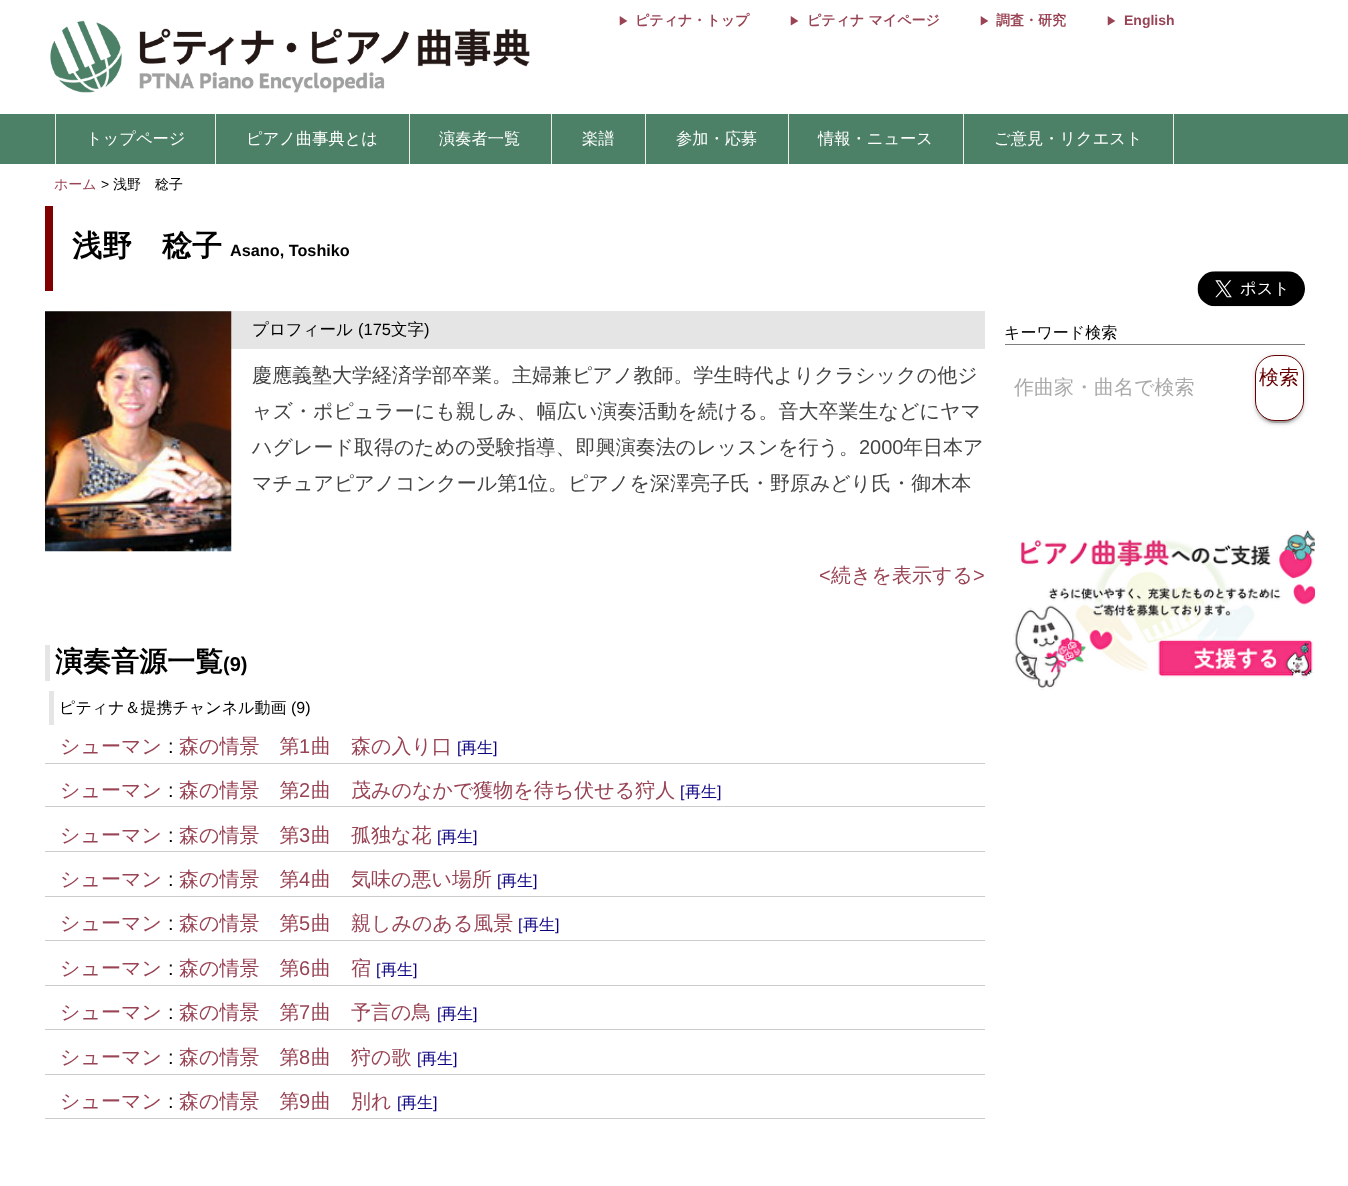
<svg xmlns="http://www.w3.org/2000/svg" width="1348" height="1186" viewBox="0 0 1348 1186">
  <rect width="100%" height="100%" fill="#fff"/>
  <image x="50" y="20" width="480" height="73" href="img/1.png"/>
  <path d="M0 114h1348v50H0z" fill="#4c8167"/>
  <path d="M55 114h1v50H55z" fill="#eee"/>
  <path d="M215 114h1v50H215z" fill="#eee"/>
  <path d="M409 114h1v50H409z" fill="#eee"/>
  <path d="M551 114h1v50H551z" fill="#eee"/>
  <path d="M645 114h1v50H645z" fill="#eee"/>
  <path d="M788 114h1v50H788z" fill="#eee"/>
  <path d="M963 114h1v50H963z" fill="#eee"/>
  <path d="M1173 114h1v50H1173z" fill="#eee"/>
  <path d="M45 206h8v85H45z" fill="#800000"/>
  <image x="1197" y="271" width="108" height="36" href="img/2.png"/>
  <path d="M45 311h940v38H45z" fill="#e5e5e5"/>
  <image x="45" y="311" width="187" height="241" href="img/3.png"/>
  <path d="M45 645h5v36H45z" fill="#e5e5e5"/>
  <path d="M49 691h5v34H49z" fill="#e5e5e5"/>
  <path d="M45 763h940v1H45z" fill="#ccc"/>
  <path d="M45 806h940v1H45z" fill="#ccc"/>
  <path d="M45 851h940v1H45z" fill="#ccc"/>
  <path d="M45 896h940v1H45z" fill="#ccc"/>
  <path d="M45 940h940v1H45z" fill="#ccc"/>
  <path d="M45 985h940v1H45z" fill="#ccc"/>
  <path d="M45 1029h940v1H45z" fill="#ccc"/>
  <path d="M45 1074h940v1H45z" fill="#ccc"/>
  <path d="M45 1118h940v1H45z" fill="#ccc"/>
  <path d="M1005 344h300v1H1005z" fill="#808080"/>
  <rect x="1258" y="361" width="43" height="62" rx="18" fill="#00000033" filter="blur(0.5px)"/>
  <rect x="1255" y="356" width="49" height="67" rx="20" fill="#0000001f" filter="blur(3px)"/>
  <rect x="1255" y="358" width="49" height="66" rx="20" fill="#00000024" filter="blur(1px)"/>
  <rect x="1255.5" y="355.5" width="48" height="65" rx="19.5" fill="#fff" stroke="#600"/>
  <image x="1013" y="529" width="302" height="161" href="img/4.png"/>
  <text x="618" y="25" font-family="WenQuanYi Zen Hei" font-size="11" font-weight="bold" fill="#945">▶</text>
  <text x="635" y="25" font-family="WenQuanYi Zen Hei" font-size="14" font-weight="bold" fill="#945">ピティナ・トップ</text>
  <text x="789" y="25" font-family="WenQuanYi Zen Hei" font-size="11" font-weight="bold" fill="#945">▶</text>
  <text x="807" y="25" font-family="WenQuanYi Zen Hei" font-size="14" font-weight="bold" fill="#945">ピティナ マイページ</text>
  <text x="979" y="25" font-family="WenQuanYi Zen Hei" font-size="11" font-weight="bold" fill="#945">▶</text>
  <text x="996" y="25" font-family="WenQuanYi Zen Hei" font-size="14" font-weight="bold" fill="#945">調査・研究</text>
  <text x="1106" y="25" font-family="WenQuanYi Zen Hei" font-size="11" font-weight="bold" fill="#945">▶</text>
  <text x="1124" y="25" font-family="Liberation Sans" font-size="14" font-weight="bold" fill="#945">English</text>
  <g font-family="WenQuanYi Zen Hei" font-size="16.25" font-weight="500" fill="#fff">
    <text x="86" y="144">トップページ</text>
    <text x="246" y="144">ピアノ曲事典とは</text>
    <text x="439" y="144">演奏者一覧</text>
    <text x="582" y="144">楽譜</text>
    <text x="676" y="144">参加・応募</text>
    <text x="818" y="144">情報・ニュース</text>
    <text x="994" y="144">ご意見・リクエスト</text>
  </g>
  <text x="54" y="189" font-family="WenQuanYi Zen Hei" font-size="14" font-weight="500" fill="#945">ホーム</text>
  <text x="101" y="189" font-family="Liberation Sans" font-size="14" fill="#000">&gt;</text>
  <text x="113" y="189" font-family="WenQuanYi Zen Hei" font-size="14" font-weight="500" fill="#000">浅野　稔子</text>
  <text x="72" y="256" font-family="WenQuanYi Zen Hei" font-size="30" font-weight="bold" fill="#000">浅野　稔子</text>
  <text x="230" y="256" font-family="Liberation Sans" font-size="16.25" font-weight="bold" fill="#000">Asano, Toshiko</text>
  <text x="252" y="335" font-family="WenQuanYi Zen Hei" font-size="16.5" font-weight="500" fill="#000">プロフィール</text>
  <text x="358" y="335" font-family="Liberation Sans" font-size="16.5" fill="#000">(175</text>
  <text x="391" y="335" font-family="WenQuanYi Zen Hei" font-size="16.5" font-weight="500" fill="#000">文字</text>
  <text x="424" y="335" font-family="Liberation Sans" font-size="16.5" fill="#000">)</text>
  <g font-family="WenQuanYi Zen Hei" font-size="20" font-weight="500" fill="#444">
    <text x="252" y="382">慶應義塾大学経済学部卒業。主婦兼ピアノ教師。学生時代よりクラシックの他ジ</text>
    <text x="252" y="418">ャズ・ポピュラーにも親しみ、幅広い演奏活動を続ける。音大卒業生などにヤマ</text>
    <text x="252" y="454">ハグレード取得のための受験指導、即興演奏法のレッスンを行う。</text>
  </g>
  <text x="859" y="454" font-family="Liberation Sans" font-size="20" fill="#444">2000</text>
  <g font-family="WenQuanYi Zen Hei" font-size="20" font-weight="500" fill="#444">
    <text x="903" y="454">年日本ア</text>
    <text x="252" y="490">マチュアピアノコンクール第</text>
  </g>
  <text x="517" y="490" font-family="Liberation Sans" font-size="20" fill="#444">1</text>
  <text x="528" y="490" font-family="WenQuanYi Zen Hei" font-size="20" font-weight="500" fill="#444">位。ピアノを深澤亮子氏・野原みどり氏・御木本</text>
  <text x="819" y="582" font-family="Liberation Sans" font-size="20" fill="#945">&lt;</text>
  <text x="831" y="582" font-family="WenQuanYi Zen Hei" font-size="20" font-weight="500" fill="#945">続きを表示する</text>
  <text x="973" y="582" font-family="Liberation Sans" font-size="20" fill="#945">&gt;</text>
  <text x="55" y="671" font-family="WenQuanYi Zen Hei" font-size="28" font-weight="bold" fill="#000">演奏音源一覧</text>
  <text x="223" y="671" font-family="Liberation Sans" font-size="20" font-weight="bold" fill="#000">(9)</text>
  <text x="59" y="713" font-family="WenQuanYi Zen Hei" font-size="16" font-weight="500" fill="#000">ピティナ＆提携チャンネル動画</text>
  <text x="291" y="713" font-family="Liberation Sans" font-size="16" fill="#000">(9)</text>
  <text x="60" y="753" font-family="WenQuanYi Zen Hei" font-size="20" font-weight="500" fill="#945">シューマン</text>
  <text x="168" y="753" font-family="Liberation Sans" font-size="20" fill="#000">:</text>
  <text x="179" y="753" font-family="WenQuanYi Zen Hei" font-size="20" font-weight="500" fill="#945">森の情景　第</text>
  <text x="299" y="753" font-family="Liberation Sans" font-size="20" fill="#945">1</text>
  <text x="311" y="753" font-family="WenQuanYi Zen Hei" font-size="20" font-weight="500" fill="#945">曲　森の入り口</text>
  <text x="457" y="753" font-family="Liberation Sans" font-size="16" fill="#0b0080">[</text>
  <text x="461" y="753" font-family="WenQuanYi Zen Hei" font-size="16" font-weight="500" fill="#0b0080">再生</text>
  <text x="493" y="753" font-family="Liberation Sans" font-size="16" fill="#0b0080">]</text>
  <text x="60" y="797" font-family="WenQuanYi Zen Hei" font-size="20" font-weight="500" fill="#945">シューマン</text>
  <text x="168" y="797" font-family="Liberation Sans" font-size="20" fill="#000">:</text>
  <text x="179" y="797" font-family="WenQuanYi Zen Hei" font-size="20" font-weight="500" fill="#945">森の情景　第</text>
  <text x="299" y="797" font-family="Liberation Sans" font-size="20" fill="#945">2</text>
  <text x="311" y="797" font-family="WenQuanYi Zen Hei" font-size="20" font-weight="500" fill="#945">曲　茂みのなかで獲物を待ち伏せる狩人</text>
  <text x="680" y="797" font-family="Liberation Sans" font-size="16" fill="#0b0080">[</text>
  <text x="685" y="797" font-family="WenQuanYi Zen Hei" font-size="16" font-weight="500" fill="#0b0080">再生</text>
  <text x="717" y="797" font-family="Liberation Sans" font-size="16" fill="#0b0080">]</text>
  <text x="60" y="842" font-family="WenQuanYi Zen Hei" font-size="20" font-weight="500" fill="#945">シューマン</text>
  <text x="168" y="842" font-family="Liberation Sans" font-size="20" fill="#000">:</text>
  <text x="179" y="842" font-family="WenQuanYi Zen Hei" font-size="20" font-weight="500" fill="#945">森の情景　第</text>
  <text x="299" y="842" font-family="Liberation Sans" font-size="20" fill="#945">3</text>
  <text x="311" y="842" font-family="WenQuanYi Zen Hei" font-size="20" font-weight="500" fill="#945">曲　孤独な花</text>
  <text x="437" y="842" font-family="Liberation Sans" font-size="16" fill="#0b0080">[</text>
  <text x="441" y="842" font-family="WenQuanYi Zen Hei" font-size="16" font-weight="500" fill="#0b0080">再生</text>
  <text x="473" y="842" font-family="Liberation Sans" font-size="16" fill="#0b0080">]</text>
  <text x="60" y="886" font-family="WenQuanYi Zen Hei" font-size="20" font-weight="500" fill="#945">シューマン</text>
  <text x="168" y="886" font-family="Liberation Sans" font-size="20" fill="#000">:</text>
  <text x="179" y="886" font-family="WenQuanYi Zen Hei" font-size="20" font-weight="500" fill="#945">森の情景　第</text>
  <text x="299" y="886" font-family="Liberation Sans" font-size="20" fill="#945">4</text>
  <text x="311" y="886" font-family="WenQuanYi Zen Hei" font-size="20" font-weight="500" fill="#945">曲　気味の悪い場所</text>
  <text x="497" y="886" font-family="Liberation Sans" font-size="16" fill="#0b0080">[</text>
  <text x="501" y="886" font-family="WenQuanYi Zen Hei" font-size="16" font-weight="500" fill="#0b0080">再生</text>
  <text x="533" y="886" font-family="Liberation Sans" font-size="16" fill="#0b0080">]</text>
  <text x="60" y="930" font-family="WenQuanYi Zen Hei" font-size="20" font-weight="500" fill="#945">シューマン</text>
  <text x="168" y="930" font-family="Liberation Sans" font-size="20" fill="#000">:</text>
  <text x="179" y="930" font-family="WenQuanYi Zen Hei" font-size="20" font-weight="500" fill="#945">森の情景　第</text>
  <text x="299" y="930" font-family="Liberation Sans" font-size="20" fill="#945">5</text>
  <text x="311" y="930" font-family="WenQuanYi Zen Hei" font-size="20" font-weight="500" fill="#945">曲　親しみのある風景</text>
  <text x="518" y="930" font-family="Liberation Sans" font-size="16" fill="#0b0080">[</text>
  <text x="523" y="930" font-family="WenQuanYi Zen Hei" font-size="16" font-weight="500" fill="#0b0080">再生</text>
  <text x="555" y="930" font-family="Liberation Sans" font-size="16" fill="#0b0080">]</text>
  <text x="60" y="975" font-family="WenQuanYi Zen Hei" font-size="20" font-weight="500" fill="#945">シューマン</text>
  <text x="168" y="975" font-family="Liberation Sans" font-size="20" fill="#000">:</text>
  <text x="179" y="975" font-family="WenQuanYi Zen Hei" font-size="20" font-weight="500" fill="#945">森の情景　第</text>
  <text x="299" y="975" font-family="Liberation Sans" font-size="20" fill="#945">6</text>
  <text x="311" y="975" font-family="WenQuanYi Zen Hei" font-size="20" font-weight="500" fill="#945">曲　宿</text>
  <text x="376" y="975" font-family="Liberation Sans" font-size="16" fill="#0b0080">[</text>
  <text x="381" y="975" font-family="WenQuanYi Zen Hei" font-size="16" font-weight="500" fill="#0b0080">再生</text>
  <text x="413" y="975" font-family="Liberation Sans" font-size="16" fill="#0b0080">]</text>
  <text x="60" y="1019" font-family="WenQuanYi Zen Hei" font-size="20" font-weight="500" fill="#945">シューマン</text>
  <text x="168" y="1019" font-family="Liberation Sans" font-size="20" fill="#000">:</text>
  <text x="179" y="1019" font-family="WenQuanYi Zen Hei" font-size="20" font-weight="500" fill="#945">森の情景　第</text>
  <text x="299" y="1019" font-family="Liberation Sans" font-size="20" fill="#945">7</text>
  <text x="311" y="1019" font-family="WenQuanYi Zen Hei" font-size="20" font-weight="500" fill="#945">曲　予言の鳥</text>
  <text x="437" y="1019" font-family="Liberation Sans" font-size="16" fill="#0b0080">[</text>
  <text x="441" y="1019" font-family="WenQuanYi Zen Hei" font-size="16" font-weight="500" fill="#0b0080">再生</text>
  <text x="473" y="1019" font-family="Liberation Sans" font-size="16" fill="#0b0080">]</text>
  <text x="60" y="1064" font-family="WenQuanYi Zen Hei" font-size="20" font-weight="500" fill="#945">シューマン</text>
  <text x="168" y="1064" font-family="Liberation Sans" font-size="20" fill="#000">:</text>
  <text x="179" y="1064" font-family="WenQuanYi Zen Hei" font-size="20" font-weight="500" fill="#945">森の情景　第</text>
  <text x="299" y="1064" font-family="Liberation Sans" font-size="20" fill="#945">8</text>
  <text x="311" y="1064" font-family="WenQuanYi Zen Hei" font-size="20" font-weight="500" fill="#945">曲　狩の歌</text>
  <text x="417" y="1064" font-family="Liberation Sans" font-size="16" fill="#0b0080">[</text>
  <text x="421" y="1064" font-family="WenQuanYi Zen Hei" font-size="16" font-weight="500" fill="#0b0080">再生</text>
  <text x="453" y="1064" font-family="Liberation Sans" font-size="16" fill="#0b0080">]</text>
  <text x="60" y="1108" font-family="WenQuanYi Zen Hei" font-size="20" font-weight="500" fill="#945">シューマン</text>
  <text x="168" y="1108" font-family="Liberation Sans" font-size="20" fill="#000">:</text>
  <text x="179" y="1108" font-family="WenQuanYi Zen Hei" font-size="20" font-weight="500" fill="#945">森の情景　第</text>
  <text x="299" y="1108" font-family="Liberation Sans" font-size="20" fill="#945">9</text>
  <text x="311" y="1108" font-family="WenQuanYi Zen Hei" font-size="20" font-weight="500" fill="#945">曲　別れ</text>
  <text x="397" y="1108" font-family="Liberation Sans" font-size="16" fill="#0b0080">[</text>
  <text x="401" y="1108" font-family="WenQuanYi Zen Hei" font-size="16" font-weight="500" fill="#0b0080">再生</text>
  <text x="433" y="1108" font-family="Liberation Sans" font-size="16" fill="#0b0080">]</text>
  <text x="1004" y="338" font-family="WenQuanYi Zen Hei" font-size="16" font-weight="500" fill="#000">キーワード検索</text>
  <text x="1014" y="394" font-family="WenQuanYi Zen Hei" font-size="20" font-weight="500" fill="#aaa">作曲家・曲名で検索</text>
  <text x="1259" y="384" font-family="WenQuanYi Zen Hei" font-size="20" font-weight="500" fill="#600">検索</text>
</svg>
